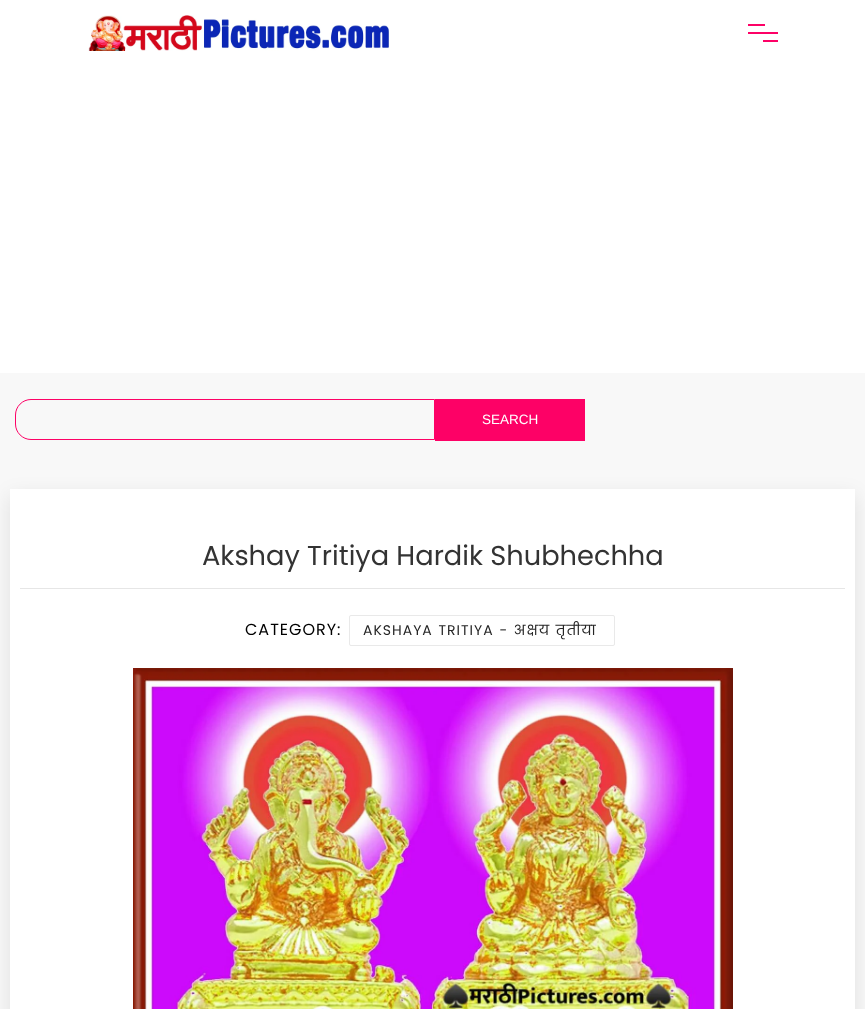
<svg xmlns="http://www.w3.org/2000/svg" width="865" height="1009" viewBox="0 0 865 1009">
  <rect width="100%" height="100%" fill="#f8f8f8"/>
  <path d="M0 0h865v373H0z" fill="#fff"/>
  <image x="88" y="15" width="301" height="36" href="img/1.png"/>
  <path d="M748 24h17v2H748z" fill="#fd0166"/>
  <path d="M748 32h30v2H748z" fill="#fd0166"/>
  <path d="M763 40h15v2H763z" fill="#fd0166"/>
  <path d="M31 399.5H434.5V439.5H31C22.5 439.5 15.5 432.5 15.5 424V415C15.5 406.5 22.5 399.5 31 399.5Z" fill="none" stroke="#fd0166"/>
  <path d="M435 399h150v42H435z" fill="#fd0166"/>
  <path d="M10 496h845v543H10z" fill="#0000001a" filter="blur(10px)"/>
  <path d="M10 489h845v520H10z" fill="#fff"/>
  <path d="M20 588h825v1H20z" fill="#e6e6e6"/>
  <rect x="349.5" y="615.5" width="265" height="30" rx="1.5" fill="none" stroke="#e9e9e9"/>
  <image x="133" y="668" width="600" height="341" href="img/2.png"/>
  <text x="482" y="424" font-family="Liberation Sans" font-size="13.5" fill="#fff">SEARCH</text>
  <text x="202" y="565" font-family="Poppins" font-size="27.25" fill="#333">Akshay Tritiya Hardik Shubhechha</text>
  <text x="245" y="635" font-family="Poppins" font-size="16" letter-spacing="1" fill="#000">CATEGORY:</text>
  <text x="363" y="635" word-spacing="1" font-family="Poppins" font-size="14" letter-spacing="1" fill="#252525">AKSHAYA TRITIYA - अक्षय तृतीया</text>
</svg>
